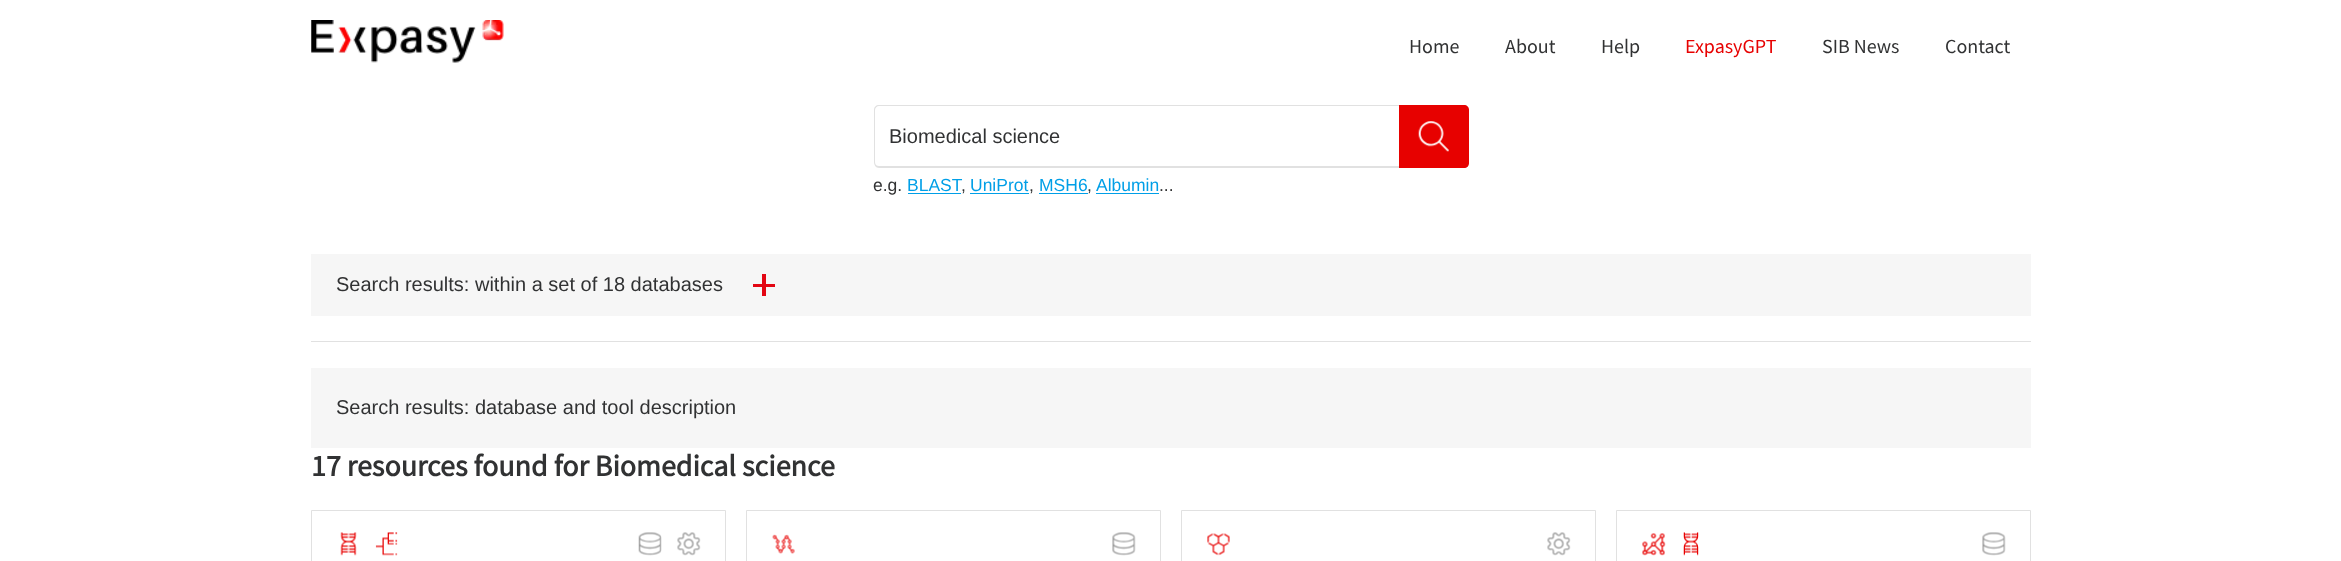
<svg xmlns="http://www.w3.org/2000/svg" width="2341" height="561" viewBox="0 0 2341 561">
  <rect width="100%" height="100%" fill="#fff"/>
  <image x="311" y="20" width="193" height="43" href="img/1.png"/>
  <path d="M879 105H1399V168H879C876 168 874 165 874 162V110C874 107 876 105 879 105ZM879 106H1399V166H879C877 166 875 165 875 162V110C875 108 877 106 879 106Z" fill="#e1e1e1" fill-rule="evenodd"/>
  <path d="M1399 105H1464C1467 105 1469 107 1469 110V163C1469 166 1467 168 1464 168H1399Z" fill="#e70100"/>
  <image x="1418" y="121" width="31" height="31" href="img/2.png"/>
  <path d="M908 193h53v1H908z" fill="#009fe7"/>
  <path d="M970 193h59v1H970z" fill="#009fe7"/>
  <path d="M1039 193h49v1H1039z" fill="#009fe7"/>
  <path d="M1096 193h63v1H1096z" fill="#009fe7"/>
  <path d="M311 254h1720v62H311z" fill="#f6f6f6"/>
  <path d="M762 274h4v22H762z" fill="#e30613"/>
  <path d="M753 284h22v3H753z" fill="#e30613"/>
  <path d="M311 341h1720v1H311z" fill="#e1e1e1"/>
  <path d="M311 368h1720v80H311z" fill="#f6f6f6"/>
  <path d="M311.5 510.5h414v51H311.5z" fill="none" stroke="#e1e1e1"/>
  <image x="340" y="532" width="17" height="24" href="img/3.png"/>
  <image x="375" y="532" width="23" height="24" href="img/4.png"/>
  <image x="638" y="532" width="24" height="24" href="img/5.png"/>
  <image x="677" y="532" width="24" height="24" href="img/6.png"/>
  <path d="M746.5 510.5h414v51H746.5z" fill="none" stroke="#e1e1e1"/>
  <image x="772" y="534" width="23" height="20" href="img/7.png"/>
  <image x="1112" y="532" width="24" height="24" href="img/8.png"/>
  <path d="M1181.5 510.5h414v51H1181.5z" fill="none" stroke="#e1e1e1"/>
  <image x="1207" y="533" width="23" height="23" href="img/9.png"/>
  <image x="1547" y="532" width="24" height="24" href="img/6.png"/>
  <path d="M1616.5 510.5h414v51H1616.5z" fill="none" stroke="#e1e1e1"/>
  <image x="1642" y="533" width="24" height="23" href="img/10.png"/>
  <image x="1683" y="532" width="16" height="24" href="img/11.png"/>
  <image x="1982" y="532" width="24" height="24" href="img/8.png"/>
  <g font-family="Source Sans Pro" font-size="20" fill="#313233">
    <text x="1409" y="53">Home</text>
    <text x="1505" y="53">About</text>
    <text x="1601" y="53">Help</text>
  </g>
  <text x="1685" y="53" font-family="Source Sans Pro" font-size="20" fill="#e70100">ExpasyGPT</text>
  <g font-family="Source Sans Pro" font-size="20" fill="#313233">
    <text x="1822" y="53">SIB News</text>
    <text x="1945" y="53">Contact</text>
  </g>
  <text x="889" y="143" font-family="Liberation Sans" font-size="20" fill="#313233">Biomedical science</text>
  <text x="873" y="191" font-family="Liberation Sans" font-size="17.5" fill="#313233">e.g.</text>
  <g font-family="Liberation Sans" font-size="17.5" fill="#009fe7">
    <text x="907" y="191">BLAST</text>
    <text x="970" y="191">UniProt</text>
    <text x="1039" y="191">MSH6</text>
    <text x="1096" y="191">Albumin</text>
  </g>
  <g font-family="Liberation Sans" font-size="17.5" fill="#313233">
    <text x="961" y="191">,</text>
    <text x="1029" y="191">,</text>
    <text x="1087" y="191">,</text>
    <text x="1159" y="191">...</text>
  </g>
  <g font-family="Liberation Sans" font-size="20" fill="#313233">
    <text x="336" y="291">Search results: within a set of 18 databases</text>
    <text x="336" y="414">Search results: database and tool description</text>
  </g>
  <text x="311" y="476" font-family="Source Sans Pro" font-size="30" font-weight="bold" fill="#313233">17 resources found for Biomedical science</text>
</svg>
